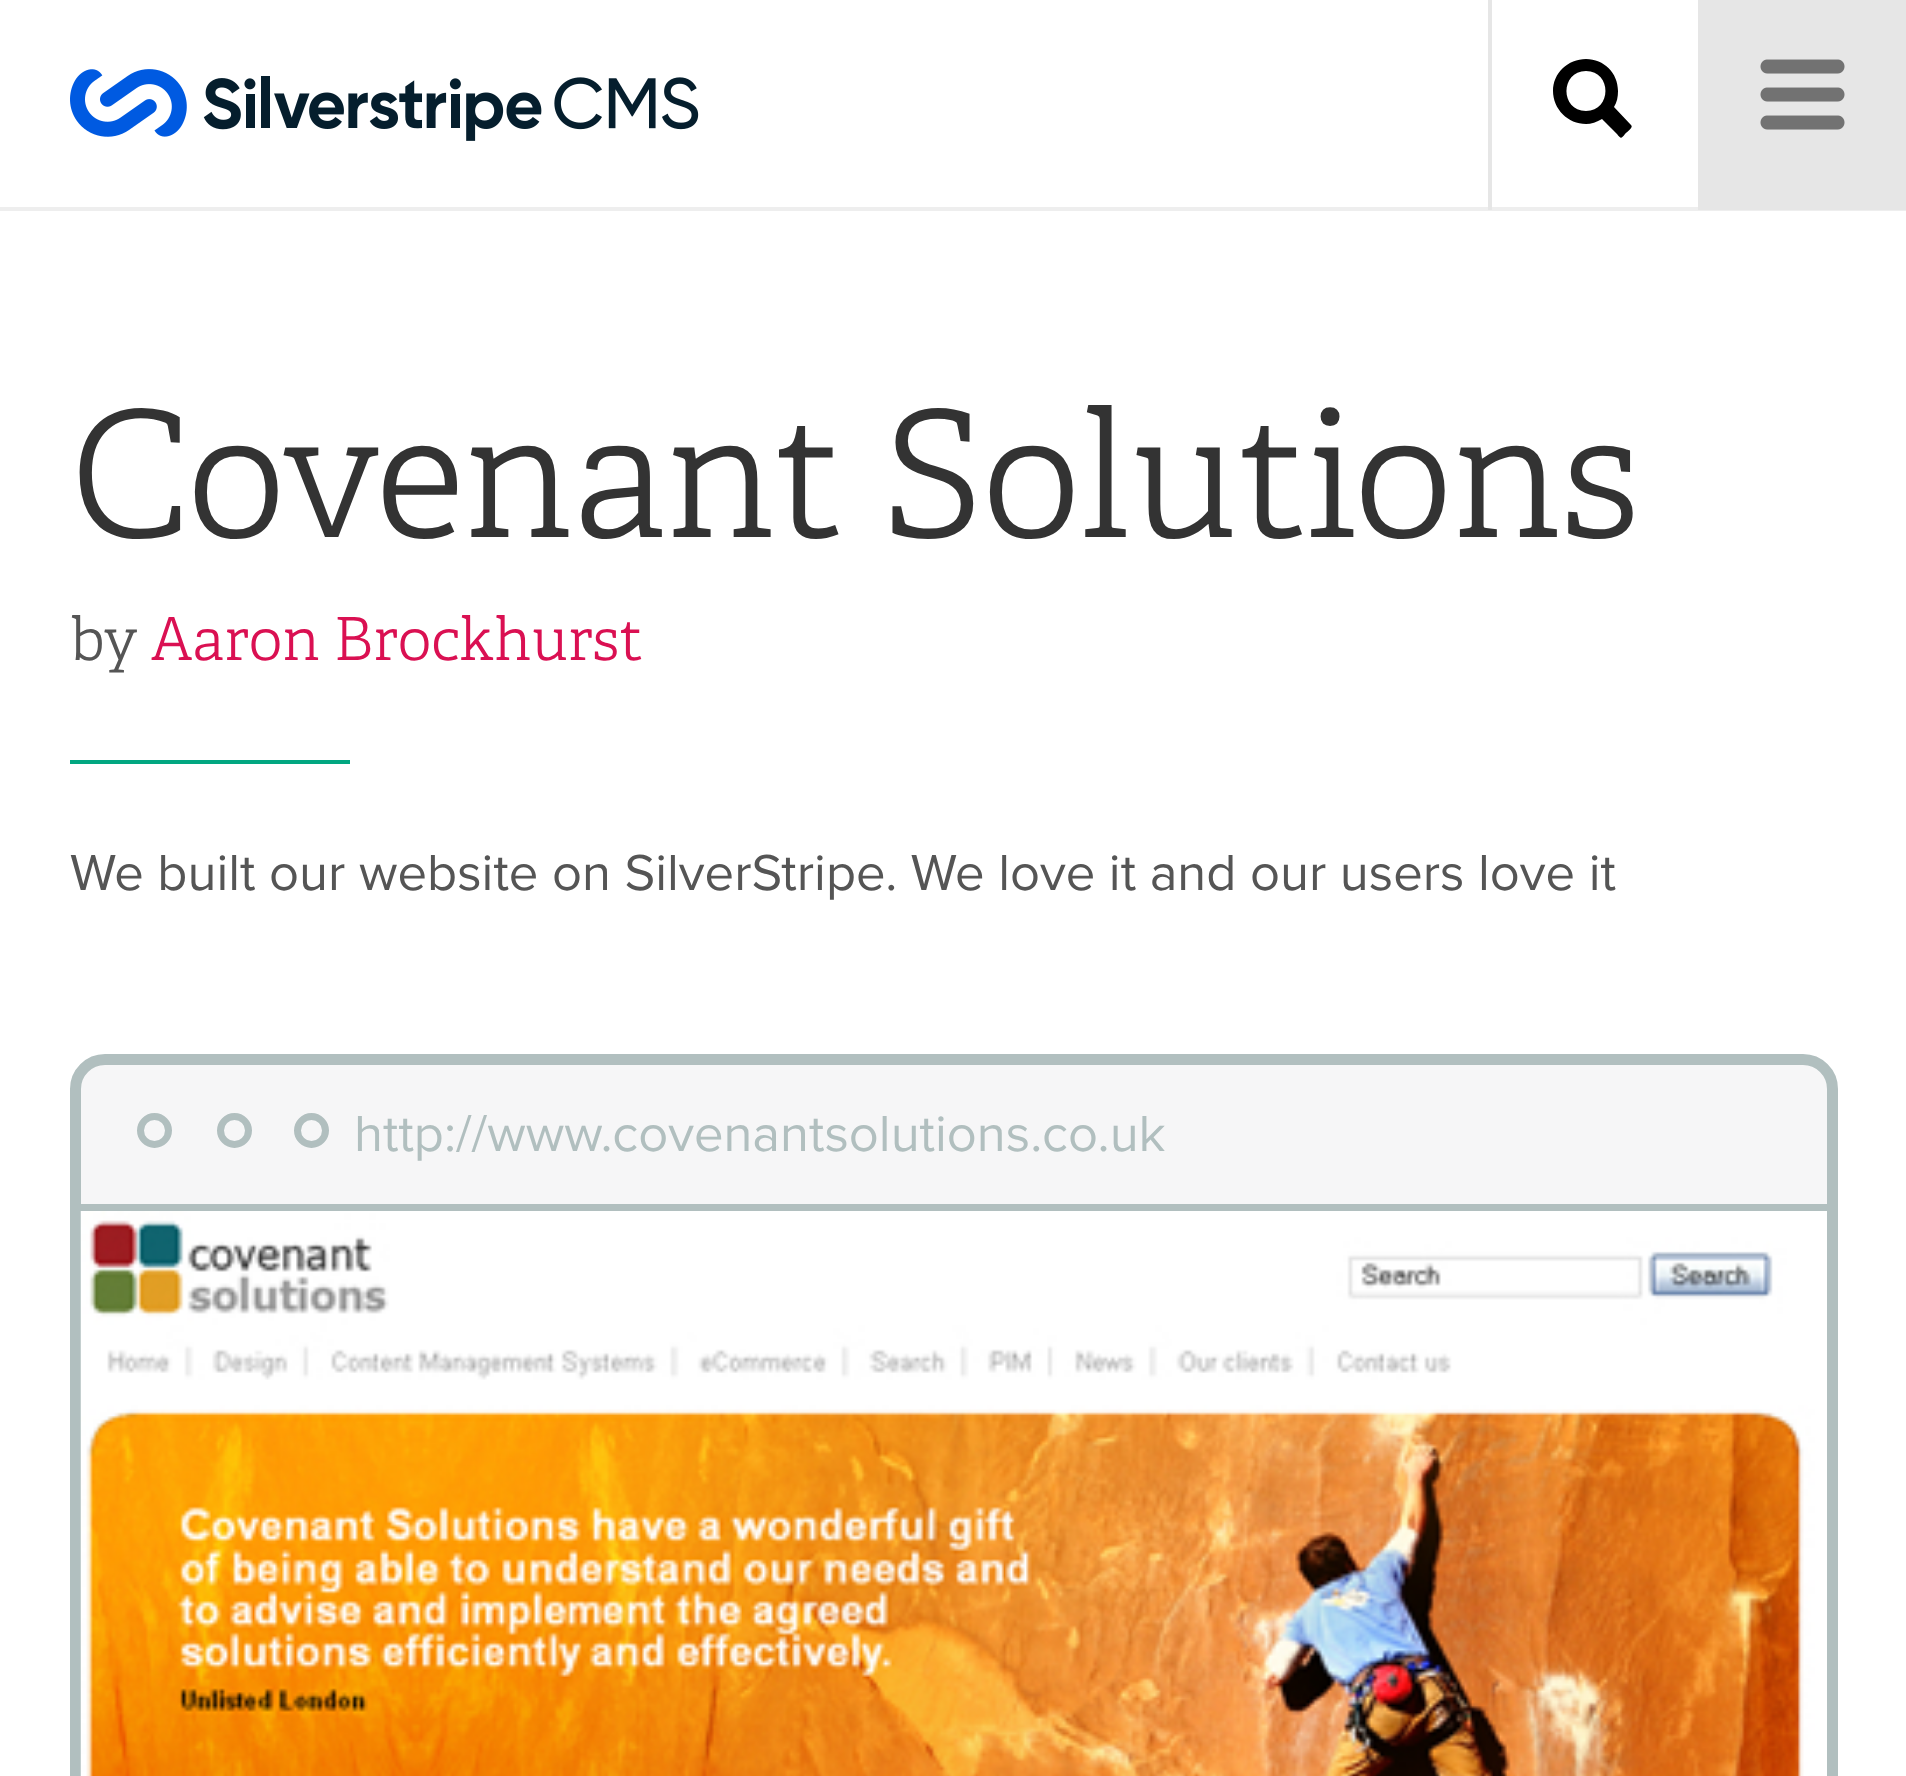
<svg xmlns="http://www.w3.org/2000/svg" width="1906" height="1776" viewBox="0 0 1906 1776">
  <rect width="100%" height="100%" fill="#fff"/>
  <path d="M0 207h1906v4H0z" fill="#eee"/>
  <image x="70" y="69" width="629" height="72" href="img/1.png"/>
  <path d="M1698 0h208v210H1698z" fill="#e6e6e6"/>
  <image x="1760" y="59" width="85" height="71" href="img/2.png"/>
  <path d="M1488 0h4v210H1488z" fill="#e6e6e6"/>
  <path d="M1631 125L1614 107C1617 102 1618 97 1618 91C1618 73 1604 59 1586 59C1568 59 1553 73 1553 91C1553 109 1568 124 1586 124C1591 124 1597 122 1602 119L1617 134C1621 139 1621 139 1625 134C1627 132 1634 127 1631 125ZM1586 71C1612 71 1612 111 1586 111C1560 111 1560 71 1586 71Z" fill="#000"/>
  <path d="M70 760h280v4H70z" fill="#02a781"/>
  <rect x="75.5" y="1059.5" width="1757" height="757" rx="29.5" fill="#f6f6f7" stroke="#b1bfbf" stroke-width="11"/>
  <circle cx="154.5" cy="1130.5" r="14" fill="none" stroke="#b1bfbf" stroke-width="7"/>
  <path d="M81 1204h1746v7H81z" fill="#b1bfbf"/>
  <circle cx="234.5" cy="1130.5" r="14" fill="none" stroke="#b1bfbf" stroke-width="7"/>
  <circle cx="311.5" cy="1130.5" r="14" fill="none" stroke="#b1bfbf" stroke-width="7"/>
  <image x="80" y="1211" width="1747" height="565" href="img/3.png"/>
  <text x="70" y="537" font-family="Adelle" font-size="175" font-weight="300" letter-spacing="-1" fill="#333">Covenant Solutions</text>
  <text x="70" y="660" font-family="Adelle" font-size="59.5" font-weight="300" fill="#555">by</text>
  <text x="151" y="660" font-family="Adelle" font-size="59.5" font-weight="300" fill="#da1052">Aaron Brockhurst</text>
  <text x="70" y="890" font-family="Proxima Nova" font-size="52.5" fill="#555">We built our website on SilverStripe. We love it and our users love it</text>
  <text x="354" y="1151" font-family="Proxima Nova" font-size="52.5" fill="#b1bfbf">http://www.covenantsolutions.co.uk</text>
</svg>
